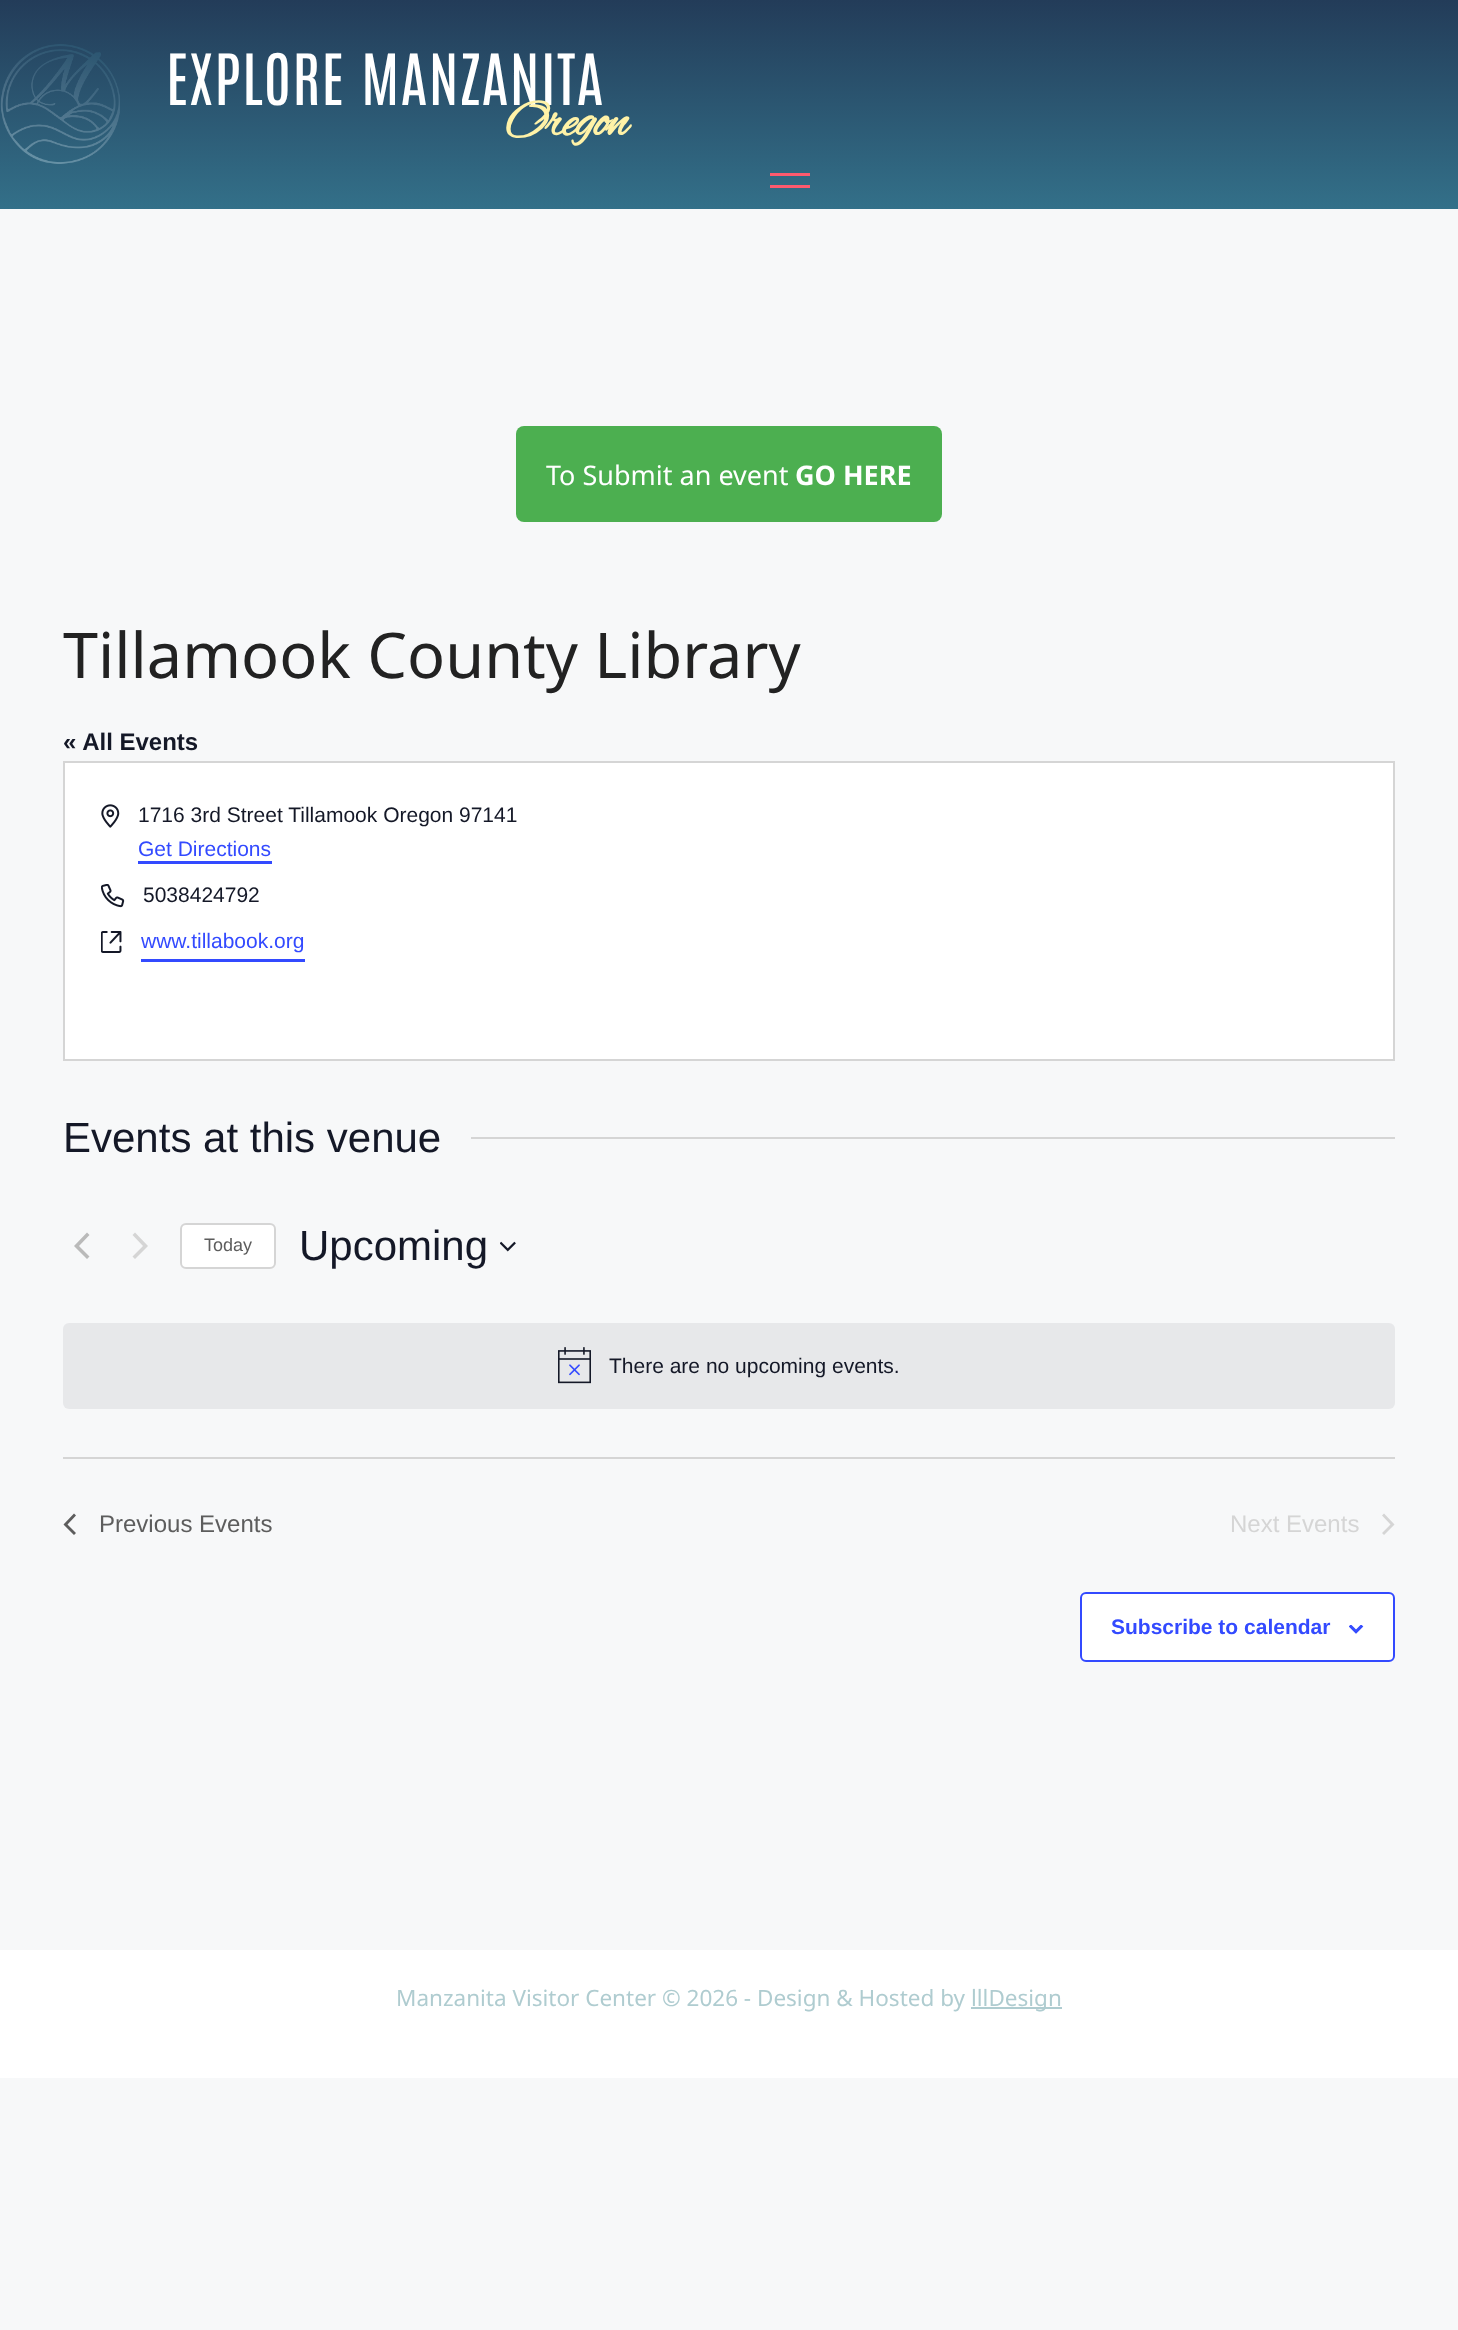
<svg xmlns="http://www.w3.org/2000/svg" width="1458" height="2330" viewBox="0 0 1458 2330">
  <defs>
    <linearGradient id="g1" gradientUnits="userSpaceOnUse" x1="729" y1="209" x2="729" y2="0"><stop offset="0" stop-color="#337089"/><stop offset="1" stop-color="#233c59"/></linearGradient>
  </defs>
  <rect width="100%" height="100%" fill="#f7f8f9"/>
  <path d="M0 0h1458v209H0z" fill="url(#g1)"/>
  <image x="0" y="44" width="120" height="120" href="img/1.png"/>
  <path d="M770 173h40v3H770z" fill="#ff5a6e"/>
  <path d="M770 185h40v3H770z" fill="#ff5a6e"/>
  <rect x="516" y="426" width="426" height="96" rx="8" fill="#4caf50"/>
  <path d="M64 762h1330v298H64z" fill="#fff" stroke="#d5d5d5" stroke-width="2"/>
  <image x="101" y="804" width="19" height="24" href="img/2.png"/>
  <path d="M138 861h134v3H138z" fill="#334aff"/>
  <image x="101" y="884" width="24" height="24" href="img/3.png"/>
  <image x="101" y="931" width="21" height="22" href="img/4.png"/>
  <path d="M141 959h164v3H141z" fill="#334aff"/>
  <path d="M471 1137h924v2H471z" fill="#d5d5d5"/>
  <path d="M89.5 1256.5L87 1259L74 1246L87 1232.5L89.5 1235L79 1246Z" fill="#bababa"/>
  <path d="M132.5 1235L135 1232.5L148 1246L135 1259L132.5 1256.5L143 1246Z" fill="#d5d5d5"/>
  <rect x="181" y="1224" width="94" height="44" rx="5" fill="#fff" stroke="#d5d5d5" stroke-width="2"/>
  <image x="500" y="1241" width="16" height="11" href="img/5.png"/>
  <rect x="63" y="1323" width="1332" height="86" rx="6" fill="#e7e8ea"/>
  <image x="558" y="1347" width="33" height="37" href="img/6.png"/>
  <path d="M63 1457h1332v2H63z" fill="#d5d5d5"/>
  <path d="M76 1533L74 1535L63.5 1524.5L74 1513.5L76 1515.5L67.5 1524.5Z" fill="#5d5d5d"/>
  <path d="M1382 1515.5L1384 1513.5L1394.5 1524.5L1384 1535L1382 1533L1390.5 1524.5Z" fill="#d5d5d5"/>
  <rect x="1081" y="1593" width="313" height="68" rx="5" fill="#fff" stroke="#334aff" stroke-width="2"/>
  <image x="1349" y="1625" width="15" height="9" href="img/7.png"/>
  <path d="M0 1950h1458v128H0z" fill="#fff"/>
  <path d="M971 2007h91v2H971z" fill="#afccd0"/>
  <text x="166" y="105" font-family="Antonio" font-size="60" letter-spacing="1.5" fill="#fff">EXPLORE MANZANITA</text>
  <text x="505" y="135" font-family="Alex Brush" font-size="52.5" font-weight="bold" letter-spacing="-1.5" fill="#fff2a7">Oregon</text>
  <text x="546" y="485" font-family="Noto Sans" font-size="27" fill="#fff">To Submit an event</text>
  <text x="795" y="485" font-family="Noto Sans" font-size="27" font-weight="bold" fill="#fff">GO HERE</text>
  <text x="63" y="678" font-family="Noto Sans" font-size="63" fill="#222">Tillamook County Library</text>
  <text x="63" y="750" font-family="Liberation Sans" font-size="24" font-weight="bold" fill="#141827">« All Events</text>
  <text x="138" y="822" font-family="Liberation Sans" font-size="21" fill="#141827">1716 3rd Street Tillamook Oregon 97141</text>
  <text x="138" y="856" font-family="Liberation Sans" font-size="21" fill="#334aff">Get Directions</text>
  <text x="143" y="902" font-family="Liberation Sans" font-size="21" fill="#141827">5038424792</text>
  <text x="141" y="948" font-family="Liberation Sans" font-size="21" fill="#334aff">www.tillabook.org</text>
  <text x="63" y="1152" font-family="Liberation Sans" font-size="42" fill="#141827">Events at this venue</text>
  <text x="204" y="1251" font-family="Liberation Sans" font-size="18" fill="#5d5d5d">Today</text>
  <text x="299" y="1260" font-family="Liberation Sans" font-size="42" fill="#141827">Upcoming</text>
  <text x="609" y="1373" font-family="Liberation Sans" font-size="21" fill="#141827">There are no upcoming events.</text>
  <text x="99" y="1532" font-family="Liberation Sans" font-size="24" fill="#5d5d5d">Previous Events</text>
  <text x="1230" y="1532" font-family="Liberation Sans" font-size="24" fill="#d5d5d5">Next Events</text>
  <text x="1111" y="1634" font-family="Liberation Sans" font-size="21" font-weight="bold" fill="#334aff">Subscribe to calendar</text>
  <g font-family="Noto Sans" font-size="22.5" fill="#afccd0">
    <text x="396" y="2006">Manzanita Visitor Center © 2026 - Design &amp; Hosted by</text>
    <text x="971" y="2006">lllDesign</text>
  </g>
</svg>
